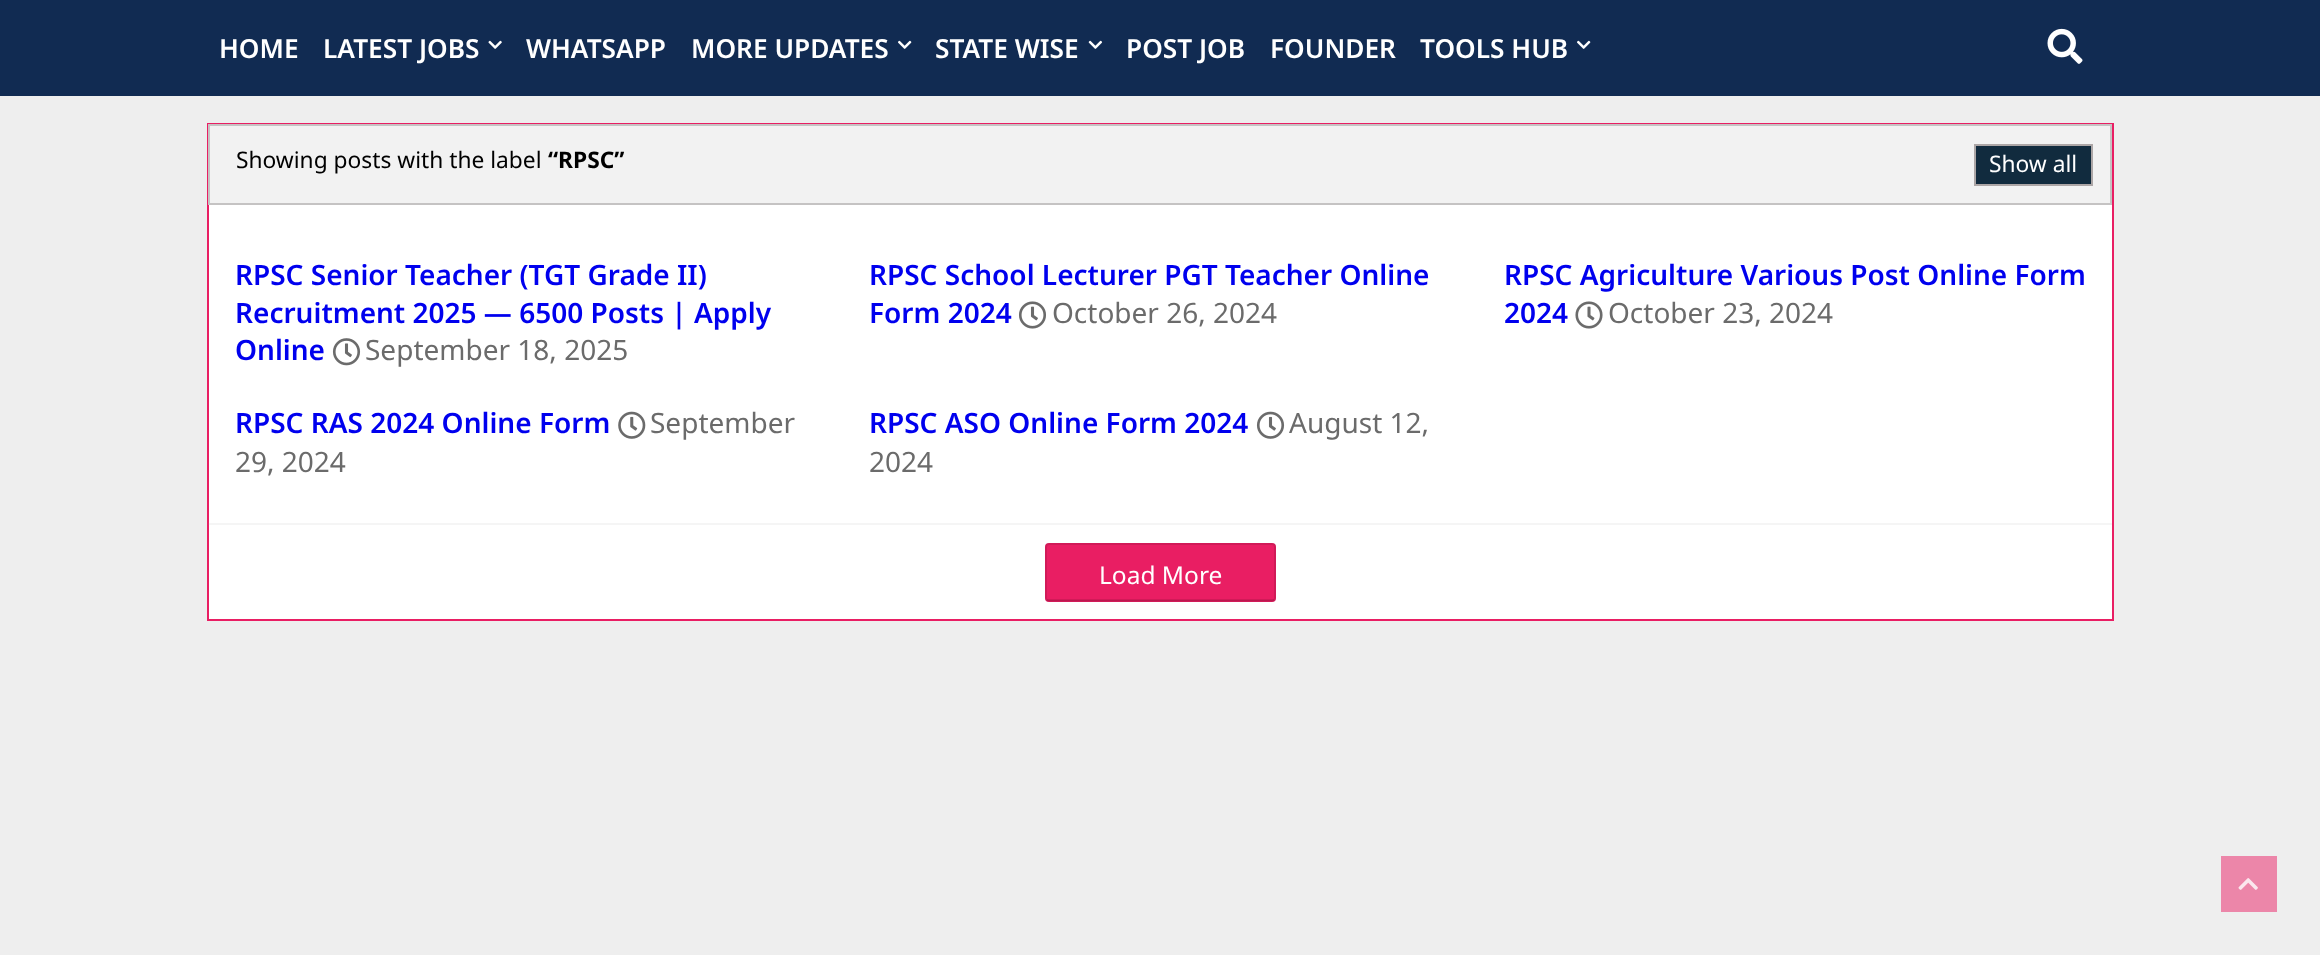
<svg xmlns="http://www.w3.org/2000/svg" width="2320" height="955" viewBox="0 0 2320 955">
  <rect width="100%" height="100%" fill="#eee"/>
  <path d="M0 0h2320v96H0z" fill="#112b52"/>
  <image x="488" y="40" width="14" height="9" href="img/1.png"/>
  <image x="898" y="40" width="14" height="9" href="img/2.png"/>
  <image x="1088" y="40" width="15" height="9" href="img/3.png"/>
  <image x="1577" y="40" width="14" height="9" href="img/2.png"/>
  <image x="2047" y="28" width="36" height="36" href="img/4.png"/>
  <path d="M209 205h1903v414H209z" fill="#fff"/>
  <path d="M208 124h1905v496H208z" fill="none" stroke="#e91e63" stroke-width="2"/>
  <path d="M209 125h1902v79H209z" fill="#f2f2f2" stroke="#c5c3c3" stroke-width="2"/>
  <path d="M1975 145h117v40H1975z" fill="#112b3e" stroke="#aca6a6" stroke-width="2"/>
  <image x="332" y="338" width="29" height="28" href="img/5.png"/>
  <image x="1019" y="301" width="27" height="28" href="img/6.png"/>
  <image x="1575" y="301" width="28" height="28" href="img/7.png"/>
  <image x="618" y="411" width="28" height="28" href="img/8.png"/>
  <image x="1256" y="411" width="29" height="28" href="img/9.png"/>
  <path d="M208 523h1904v2H208z" fill="#9b9b9b1a"/>
  <rect x="1045" y="543" width="231" height="59" rx="4" fill="#e91e63"/>
  <rect x="1046" y="544" width="229" height="57" rx="3" fill="none" stroke="#0000001a" stroke-width="2"/>
  <path d="M1047 599h227v2H1047z" fill="#0000001a"/>
  <path d="M2221 856h56v56H2221z" fill="#ec86a9"/>
  <image x="2238" y="878" width="20" height="12" href="img/10.png"/>
  <g font-family="Noto Sans" font-size="26.25" font-weight="600" fill="#fff">
    <text x="219" y="58">HOME</text>
    <text x="323" y="58">LATEST JOBS</text>
    <text x="526" y="58">WHATSAPP</text>
    <text x="691" y="58">MORE UPDATES</text>
    <text x="935" y="58">STATE WISE</text>
    <text x="1126" y="58">POST JOB</text>
    <text x="1270" y="58">FOUNDER</text>
    <text x="1420" y="58">TOOLS HUB</text>
  </g>
  <text x="236" y="168" font-family="Noto Sans" font-size="22.75" fill="#000">Showing posts with the label</text>
  <text x="548" y="168" font-family="Noto Sans" font-size="22.75" font-weight="bold" fill="#000">“RPSC”</text>
  <text x="1989" y="172" font-family="Noto Sans" font-size="22.75" fill="#fff">Show all</text>
  <g font-family="Noto Sans" font-size="28" font-weight="600" fill="#00e">
    <text x="235" y="285">RPSC Senior Teacher (TGT Grade II)</text>
    <text x="235" y="323">Recruitment 2025 — 6500 Posts | Apply</text>
    <text x="235" y="360">Online</text>
  </g>
  <text x="365" y="360" font-family="Noto Sans" font-size="28" fill="#6b6b6b">September 18, 2025</text>
  <g font-family="Noto Sans" font-size="28" font-weight="600" fill="#00e">
    <text x="869" y="285">RPSC School Lecturer PGT Teacher Online</text>
    <text x="869" y="323">Form 2024</text>
  </g>
  <text x="1052" y="323" font-family="Noto Sans" font-size="28" fill="#6b6b6b">October 26, 2024</text>
  <g font-family="Noto Sans" font-size="28" font-weight="600" fill="#00e">
    <text x="1504" y="285">RPSC Agriculture Various Post Online Form</text>
    <text x="1504" y="323">2024</text>
  </g>
  <text x="1608" y="323" font-family="Noto Sans" font-size="28" fill="#6b6b6b">October 23, 2024</text>
  <text x="235" y="433" font-family="Noto Sans" font-size="28" font-weight="600" fill="#00e">RPSC RAS 2024 Online Form</text>
  <g font-family="Noto Sans" font-size="28" fill="#6b6b6b">
    <text x="650" y="433">September</text>
    <text x="235" y="472">29, 2024</text>
  </g>
  <text x="869" y="433" font-family="Noto Sans" font-size="28" font-weight="600" fill="#00e">RPSC ASO Online Form 2024</text>
  <g font-family="Noto Sans" font-size="28" fill="#6b6b6b">
    <text x="1289" y="433">August 12,</text>
    <text x="869" y="472">2024</text>
  </g>
  <text x="1099" y="584" font-family="Noto Sans" font-size="24.5" fill="#fff">Load More</text>
</svg>
